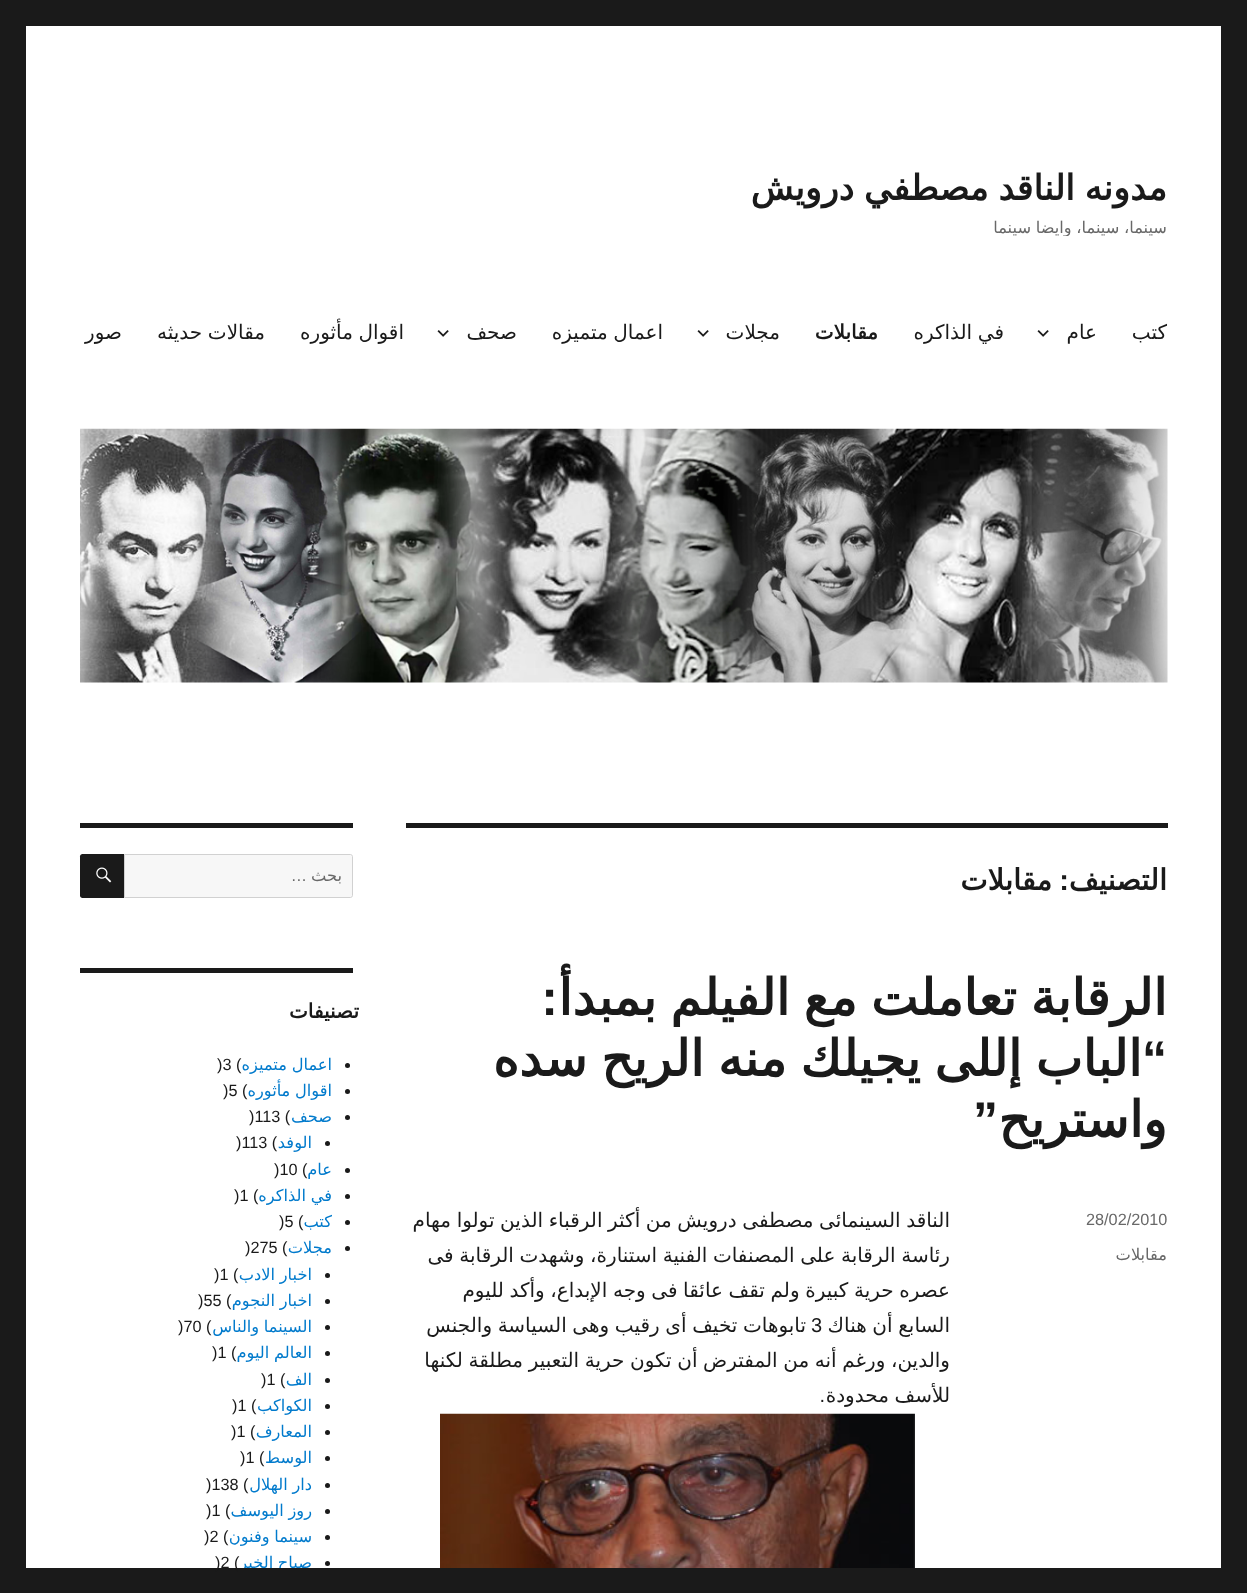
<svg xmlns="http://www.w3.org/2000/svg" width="1247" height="1593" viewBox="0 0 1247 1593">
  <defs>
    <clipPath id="clip1"><path d="M750 166h418v70H750z"/></clipPath>
  </defs>
  <rect width="100%" height="100%" fill="#1a1a1a"/>
  <path d="M26 26h1195v1542H26z" fill="#fff"/>
  <image x="1037" y="330" width="12" height="7" href="img/1.png"/>
  <image x="697" y="330" width="12" height="7" href="img/1.png"/>
  <image x="437" y="330" width="12" height="7" href="img/1.png"/>
  <image x="80" y="428" width="1088" height="255" href="img/2.png"/>
  <path d="M406 823h762v5H406z" fill="#1a1a1a"/>
  <image x="440" y="1413" width="475" height="155" href="img/3.png"/>
  <path d="M80 823h273v5H80z" fill="#1a1a1a"/>
  <path d="M124.5 854.5H350.5C351.5 854.5 352.5 855.5 352.5 856.5V895.5C352.5 896.5 351.5 897.5 350.5 897.5H124.5Z" fill="#f7f7f7" stroke="#d1d1d1"/>
  <path d="M82.5 854H124V898H82.5C81 898 80 897 80 895.5V856.5C80 855 81 854 82.5 854Z" fill="#1a1a1a"/>
  <image x="96" y="867" width="16" height="16" href="img/4.png"/>
  <path d="M80 968h273v5H80z" fill="#1a1a1a"/>
  <circle cx="347.5" cy="1065.5" r="2.5" fill="#1a1a1a"/>
  <circle cx="347.5" cy="1091.5" r="2.5" fill="#1a1a1a"/>
  <circle cx="347.5" cy="1117.5" r="2.5" fill="#1a1a1a"/>
  <circle cx="327.5" cy="1143.5" r="2.5" fill="#1a1a1a"/>
  <circle cx="347.5" cy="1170.5" r="2.5" fill="#1a1a1a"/>
  <circle cx="347.5" cy="1196.5" r="2.5" fill="#1a1a1a"/>
  <circle cx="347.5" cy="1222.5" r="2.5" fill="#1a1a1a"/>
  <circle cx="347.5" cy="1248.5" r="2.5" fill="#1a1a1a"/>
  <circle cx="327.5" cy="1275.5" r="2.5" fill="#1a1a1a"/>
  <circle cx="327.5" cy="1301.5" r="2.5" fill="#1a1a1a"/>
  <circle cx="327.5" cy="1327.5" r="2.5" fill="#1a1a1a"/>
  <circle cx="327.5" cy="1353.5" r="2.5" fill="#1a1a1a"/>
  <circle cx="327.5" cy="1380.5" r="2.5" fill="#1a1a1a"/>
  <circle cx="327.5" cy="1406.5" r="2.5" fill="#1a1a1a"/>
  <circle cx="327.5" cy="1432.5" r="2.5" fill="#1a1a1a"/>
  <circle cx="327.5" cy="1458.5" r="2.5" fill="#1a1a1a"/>
  <circle cx="327.5" cy="1485.5" r="2.5" fill="#1a1a1a"/>
  <circle cx="327.5" cy="1511.5" r="2.5" fill="#1a1a1a"/>
  <circle cx="327.5" cy="1537.5" r="2.5" fill="#1a1a1a"/>
  <circle cx="327.5" cy="1563.5" r="2.5" fill="#1a1a1a"/>
  <g clip-path="url(#clip1)">
    <text x="1167" y="200" word-spacing="-1.5" font-family="DejaVu Sans" font-size="35" font-weight="bold" direction="rtl" fill="#1a1a1a">مدونه الناقد مصطفي درويش</text>
    <text x="1167" y="233" word-spacing="-0.5" font-family="DejaVu Sans" font-size="16.25" direction="rtl" fill="#686868">سينما، سينما، وايضا سينما</text>
  </g>
  <g font-family="DejaVu Sans" font-size="20" direction="rtl" fill="#1a1a1a">
    <text x="1167" y="339">كتب</text>
    <text x="1097" y="339">عام</text>
    <text x="1004" y="339" word-spacing="-0.75">في الذاكره</text>
  </g>
  <text x="878" y="339" font-family="DejaVu Sans" font-size="20" font-weight="bold" direction="rtl" fill="#1a1a1a">مقابلات</text>
  <g font-family="DejaVu Sans" font-size="20" direction="rtl" fill="#1a1a1a">
    <text x="780" y="339">مجلات</text>
    <text x="663" y="339" word-spacing="-0.75">اعمال متميزه</text>
    <text x="517" y="339">صحف</text>
    <text x="404" y="339" word-spacing="-0.75">اقوال مأثوره</text>
    <text x="265" y="339" word-spacing="-0.75">مقالات حديثه</text>
    <text x="122" y="339">صور</text>
  </g>
  <text x="1167" y="890" font-family="DejaVu Sans" font-size="29" font-weight="bold" direction="rtl" fill="#1a1a1a">التصنيف</text>
  <text x="1069" y="890" font-family="Liberation Sans" font-size="29" font-weight="bold" direction="rtl" fill="#1a1a1a">:</text>
  <text x="1052" y="890" font-family="DejaVu Sans" font-size="29" font-weight="bold" direction="rtl" fill="#1a1a1a">مقابلات</text>
  <text x="1167" y="1015" word-spacing="-2" font-family="DejaVu Sans" font-size="50" font-weight="bold" direction="rtl" fill="#1a1a1a">الرقابة تعاملت مع الفيلم بمبدأ</text>
  <text x="558" y="1015" font-family="Liberation Sans" font-size="50" font-weight="bold" direction="rtl" fill="#1a1a1a">:</text>
  <text x="1142" y="1076" word-spacing="-2" font-family="DejaVu Sans" font-size="50" font-weight="bold" direction="rtl" fill="#1a1a1a">الباب إللى يجيلك منه الريح سده</text>
  <text x="1167" y="1076" font-family="Liberation Sans" font-size="50" font-weight="bold" direction="rtl" fill="#1a1a1a">“</text>
  <text x="1167" y="1137" font-family="DejaVu Sans" font-size="50" font-weight="bold" direction="rtl" fill="#1a1a1a">واستريح</text>
  <text x="998" y="1137" font-family="Liberation Sans" font-size="50" font-weight="bold" direction="rtl" fill="#1a1a1a">”</text>
  <text x="1086" y="1225" font-family="Liberation Sans" font-size="16.25" fill="#686868">28/02/2010</text>
  <text x="1167" y="1260" font-family="DejaVu Sans" font-size="16.25" direction="rtl" fill="#686868">مقابلات</text>
  <g font-family="DejaVu Sans" font-size="20" direction="rtl" fill="#1a1a1a">
    <text x="950" y="1227" word-spacing="-0.75">الناقد السينمائى مصطفى درويش من أكثر الرقباء الذين تولوا مهام</text>
    <text x="950" y="1262" word-spacing="-0.75">رئاسة الرقابة على المصنفات الفنية استنارة، وشهدت الرقابة فى</text>
    <text x="950" y="1297" word-spacing="-0.75">عصره حرية كبيرة ولم تقف عائقا فى وجه الإبداع، وأكد لليوم</text>
    <text x="950" y="1332" word-spacing="-0.75">السابع أن هناك</text>
  </g>
  <text x="811" y="1332" font-family="Liberation Sans" font-size="20" fill="#1a1a1a">3</text>
  <g font-family="DejaVu Sans" font-size="20" direction="rtl" fill="#1a1a1a">
    <text x="806" y="1332" word-spacing="-0.75">تابوهات تخيف أى رقيب وهى السياسة والجنس</text>
    <text x="950" y="1367" word-spacing="-0.75">والدين، ورغم أنه من المفترض أن تكون حرية التعبير مطلقة لكنها</text>
    <text x="950" y="1402" word-spacing="-0.75">للأسف محدودة</text>
  </g>
  <text x="825" y="1402" font-family="Liberation Sans" font-size="20" direction="rtl" fill="#1a1a1a">.</text>
  <text x="342" y="881" font-family="DejaVu Sans" font-size="16.25" direction="rtl" fill="#686868">بحث</text>
  <text x="307" y="881" font-family="Liberation Sans" font-size="16.25" direction="rtl" fill="#686868">…</text>
  <text x="359" y="1018" font-family="DejaVu Sans" font-size="20" font-weight="bold" letter-spacing="1" direction="rtl" fill="#1a1a1a">تصنيفات</text>
  <text x="332" y="1070" word-spacing="-0.5" font-family="DejaVu Sans" font-size="16.25" direction="rtl" fill="#007acc">اعمال متميزه</text>
  <text x="217" y="1070" font-family="Liberation Sans" font-size="16.25" fill="#1a1a1a">)3 (</text>
  <text x="332" y="1096" word-spacing="-0.5" font-family="DejaVu Sans" font-size="16.25" direction="rtl" fill="#007acc">اقوال مأثوره</text>
  <text x="223" y="1096" font-family="Liberation Sans" font-size="16.25" fill="#1a1a1a">)5 (</text>
  <text x="332" y="1122" font-family="DejaVu Sans" font-size="16.25" direction="rtl" fill="#007acc">صحف</text>
  <text x="249" y="1122" font-family="Liberation Sans" font-size="16.25" fill="#1a1a1a">)113 (</text>
  <text x="312" y="1148" font-family="DejaVu Sans" font-size="16.25" direction="rtl" fill="#007acc">الوفد</text>
  <text x="236" y="1148" font-family="Liberation Sans" font-size="16.25" fill="#1a1a1a">)113 (</text>
  <text x="332" y="1175" font-family="DejaVu Sans" font-size="16.25" direction="rtl" fill="#007acc">عام</text>
  <text x="274" y="1175" font-family="Liberation Sans" font-size="16.25" fill="#1a1a1a">)10 (</text>
  <text x="332" y="1201" word-spacing="-0.5" font-family="DejaVu Sans" font-size="16.25" direction="rtl" fill="#007acc">في الذاكره</text>
  <text x="234" y="1201" font-family="Liberation Sans" font-size="16.25" fill="#1a1a1a">)1 (</text>
  <text x="332" y="1227" font-family="DejaVu Sans" font-size="16.25" direction="rtl" fill="#007acc">كتب</text>
  <text x="279" y="1227" font-family="Liberation Sans" font-size="16.25" fill="#1a1a1a">)5 (</text>
  <text x="332" y="1253" font-family="DejaVu Sans" font-size="16.25" direction="rtl" fill="#007acc">مجلات</text>
  <text x="245" y="1253" font-family="Liberation Sans" font-size="16.25" fill="#1a1a1a">)275 (</text>
  <text x="312" y="1280" word-spacing="-0.5" font-family="DejaVu Sans" font-size="16.25" direction="rtl" fill="#007acc">اخبار الادب</text>
  <text x="214" y="1280" font-family="Liberation Sans" font-size="16.25" fill="#1a1a1a">)1 (</text>
  <text x="312" y="1306" word-spacing="-0.5" font-family="DejaVu Sans" font-size="16.25" direction="rtl" fill="#007acc">اخبار النجوم</text>
  <text x="198" y="1306" font-family="Liberation Sans" font-size="16.25" fill="#1a1a1a">)55 (</text>
  <text x="312" y="1332" word-spacing="-0.5" font-family="DejaVu Sans" font-size="16.25" direction="rtl" fill="#007acc">السينما والناس</text>
  <text x="178" y="1332" font-family="Liberation Sans" font-size="16.25" fill="#1a1a1a">)70 (</text>
  <text x="312" y="1358" word-spacing="-0.5" font-family="DejaVu Sans" font-size="16.25" direction="rtl" fill="#007acc">العالم اليوم</text>
  <text x="212" y="1358" font-family="Liberation Sans" font-size="16.25" fill="#1a1a1a">)1 (</text>
  <text x="312" y="1385" font-family="DejaVu Sans" font-size="16.25" direction="rtl" fill="#007acc">الف</text>
  <text x="261" y="1385" font-family="Liberation Sans" font-size="16.25" fill="#1a1a1a">)1 (</text>
  <text x="312" y="1411" font-family="DejaVu Sans" font-size="16.25" direction="rtl" fill="#007acc">الكواكب</text>
  <text x="232" y="1411" font-family="Liberation Sans" font-size="16.25" fill="#1a1a1a">)1 (</text>
  <text x="312" y="1437" font-family="DejaVu Sans" font-size="16.25" direction="rtl" fill="#007acc">المعارف</text>
  <text x="231" y="1437" font-family="Liberation Sans" font-size="16.25" fill="#1a1a1a">)1 (</text>
  <text x="312" y="1463" font-family="DejaVu Sans" font-size="16.25" direction="rtl" fill="#007acc">الوسط</text>
  <text x="240" y="1463" font-family="Liberation Sans" font-size="16.25" fill="#1a1a1a">)1 (</text>
  <text x="312" y="1490" word-spacing="-0.5" font-family="DejaVu Sans" font-size="16.25" direction="rtl" fill="#007acc">دار الهلال</text>
  <text x="206" y="1490" font-family="Liberation Sans" font-size="16.25" fill="#1a1a1a">)138 (</text>
  <text x="312" y="1516" word-spacing="-0.5" font-family="DejaVu Sans" font-size="16.25" direction="rtl" fill="#007acc">روز اليوسف</text>
  <text x="206" y="1516" font-family="Liberation Sans" font-size="16.25" fill="#1a1a1a">)1 (</text>
  <text x="312" y="1542" word-spacing="-0.5" font-family="DejaVu Sans" font-size="16.25" direction="rtl" fill="#007acc">سينما وفنون</text>
  <text x="204" y="1542" font-family="Liberation Sans" font-size="16.25" fill="#1a1a1a">)2 (</text>
  <text x="312" y="1568" word-spacing="-0.5" font-family="DejaVu Sans" font-size="16.25" direction="rtl" fill="#007acc">صباح الخير</text>
  <text x="215" y="1568" font-family="Liberation Sans" font-size="16.25" fill="#1a1a1a">)2 (</text>
  <path d="M238 1568h59v4H238z" fill="#1a1a1a"/>
</svg>
